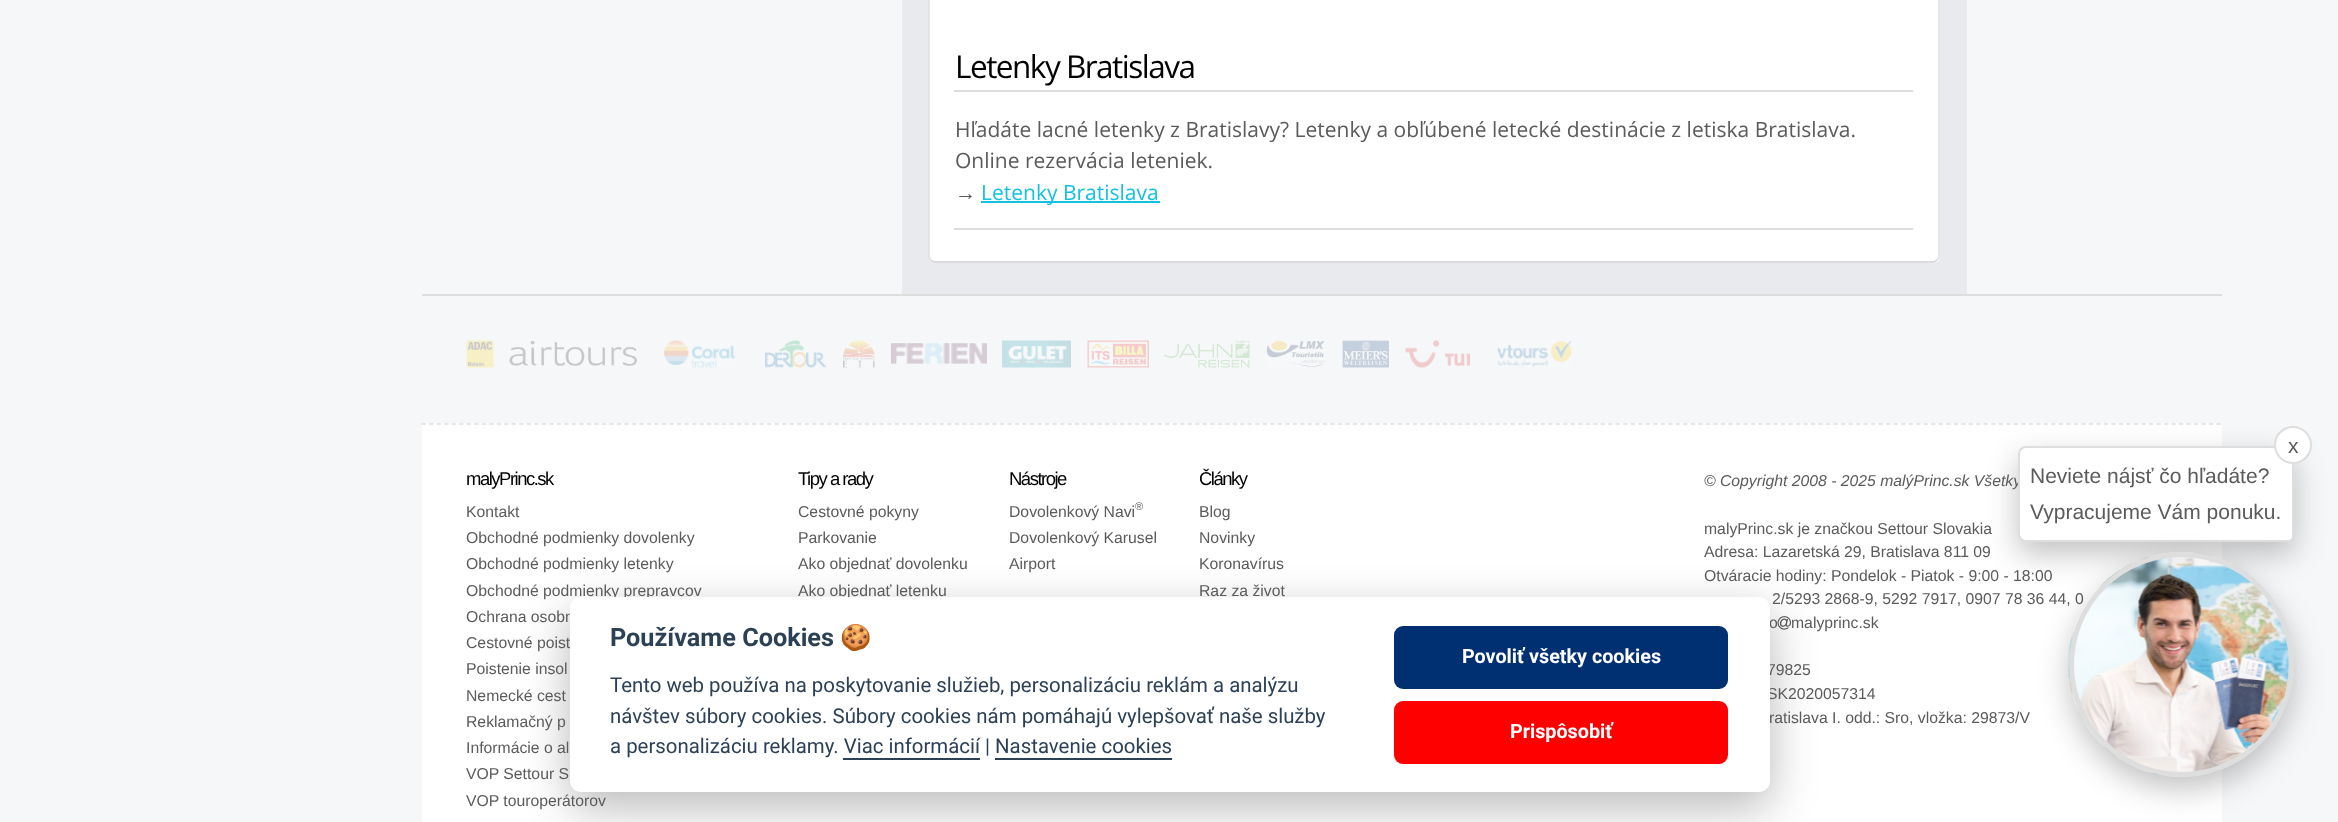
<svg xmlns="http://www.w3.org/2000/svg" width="2338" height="822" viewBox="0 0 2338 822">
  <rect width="100%" height="100%" fill="#f6f7f8"/>
  <path d="M902 0h1065v294H902z" fill="#e9eaed"/>
  <rect x="929" y="-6" width="1011" height="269" rx="6" fill="#fff"/>
  <path d="M1937-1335.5C1938-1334.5 1939-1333.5 1939-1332V256.5C1939 258 1938 259 1937 260" fill="none" stroke="#dfe0e4" stroke-width="1.5"/>
  <path d="M1937 260C1936 261 1935 262 1933.5 262H934.5C933 262 932 261 931 260" fill="none" stroke="#d0d1d5" stroke-width="1.5"/>
  <path d="M931 260C930 259 929 258 929 256.5V-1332C929-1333.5 930-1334.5 931-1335.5" fill="none" stroke="#dfe0e4" stroke-width="1.5"/>
  <path d="M954 90h959v2H954z" fill="#dedede"/>
  <path d="M954 228h959v2H954z" fill="#dedede"/>
  <path d="M981 201h179v2H981z" fill="#13c1e1"/>
  <path d="M422 294h1800v2H422z" fill="#dedede"/>
  <image x="466" y="340" width="28" height="28" href="img/1.png"/>
  <image x="509" y="341" width="128" height="25" href="img/2.png"/>
  <image x="664" y="340" width="71" height="28" href="img/3.png"/>
  <image x="765" y="340" width="62" height="28" href="img/4.png"/>
  <image x="843" y="340" width="32" height="28" href="img/5.png"/>
  <image x="891" y="343" width="96" height="21" href="img/6.png"/>
  <image x="1002" y="340" width="69" height="28" href="img/7.png"/>
  <image x="1087" y="340" width="62" height="28" href="img/8.png"/>
  <image x="1164" y="340" width="86" height="28" href="img/9.png"/>
  <image x="1266" y="340" width="59" height="27" href="img/10.png"/>
  <image x="1342" y="340" width="47" height="28" href="img/11.png"/>
  <image x="1405" y="340" width="65" height="28" href="img/12.png"/>
  <image x="1497" y="340" width="75" height="27" href="img/13.png"/>
  <path d="M422 423h1800v399H422z" fill="#fff"/>
  <path d="M421.5 424H2221.5" fill="none" stroke="#dedede" stroke-width="1.5" stroke-dasharray="4.5 3.01"/>
  <image x="1777" y="616" width="14" height="14" href="img/14.png"/>
  <rect x="2018" y="458" width="276" height="96" rx="8" fill="#0000003d" filter="blur(15px)"/>
  <rect x="570" y="612" width="1200" height="195" rx="11" fill="#02020347" filter="blur(22.5px)"/>
  <text x="955" y="78" font-family="Open Sans" font-size="31.5" letter-spacing="-1.5" fill="#000">Letenky Bratislava</text>
  <g font-family="Open Sans" font-size="21" fill="#5b5b5b">
    <text x="955" y="137">Hľadáte lacné letenky z Bratislavy? Letenky a obľúbené letecké destinácie z letiska Bratislava.</text>
    <text x="955" y="168">Online rezervácia leteniek.</text>
  </g>
  <text x="955" y="200" font-family="Liberation Serif" font-size="21" fill="#5b5b5b">→</text>
  <text x="981" y="200" font-family="Open Sans" font-size="21" fill="#13c1e1">Letenky Bratislava</text>
  <text x="466" y="485" font-family="Liberation Sans" font-size="18.5" letter-spacing="-1.5" fill="#000">malyPrinc.sk</text>
  <g font-family="Liberation Sans" font-size="15.75" fill="#5b5b5b">
    <text x="466" y="517">Kontakt</text>
    <text x="466" y="543">Obchodné podmienky dovolenky</text>
    <text x="466" y="569">Obchodné podmienky letenky</text>
    <text x="466" y="596">Obchodné podmienky prepravcov</text>
    <text x="466" y="622">Ochrana osobn</text>
    <text x="466" y="648">Cestovné poist</text>
    <text x="466" y="674">Poistenie insol</text>
    <text x="466" y="701">Nemecké cest</text>
    <text x="466" y="727">Reklamačný p</text>
    <text x="466" y="753">Informácie o al</text>
    <text x="466" y="779">VOP Settour S</text>
    <text x="466" y="806">VOP touroperátorov</text>
  </g>
  <text x="798" y="485" font-family="Liberation Sans" font-size="18.5" letter-spacing="-1.5" fill="#000">Tipy a rady</text>
  <g font-family="Liberation Sans" font-size="15.75" fill="#5b5b5b">
    <text x="798" y="517">Cestovné pokyny</text>
    <text x="798" y="543">Parkovanie</text>
    <text x="798" y="569">Ako objednať dovolenku</text>
    <text x="798" y="596">Ako objednať letenku</text>
  </g>
  <text x="1009" y="485" font-family="Liberation Sans" font-size="18.5" letter-spacing="-1.5" fill="#000">Nástroje</text>
  <text x="1009" y="517" font-family="Liberation Sans" font-size="15.75" fill="#5b5b5b">Dovolenkový Navi</text>
  <text x="1135" y="510" font-family="Liberation Sans" font-size="11" fill="#5b5b5b">®</text>
  <g font-family="Liberation Sans" font-size="15.75" fill="#5b5b5b">
    <text x="1009" y="543">Dovolenkový Karusel</text>
    <text x="1009" y="569">Airport</text>
  </g>
  <text x="1199" y="485" font-family="Liberation Sans" font-size="18.5" letter-spacing="-1.5" fill="#000">Články</text>
  <g font-family="Liberation Sans" font-size="15.75" fill="#5b5b5b">
    <text x="1199" y="517">Blog</text>
    <text x="1199" y="543">Novinky</text>
    <text x="1199" y="569">Koronavírus</text>
    <text x="1199" y="596">Raz za život</text>
  </g>
  <text x="1704" y="486" font-family="Liberation Sans" font-size="15.75" font-style="italic" fill="#5b5b5b">© Copyright 2008 - 2025 malýPrinc.sk Všetky</text>
  <g font-family="Liberation Sans" font-size="15.75" fill="#5b5b5b">
    <text x="1704" y="534">malyPrinc.sk je značkou Settour Slovakia</text>
    <text x="1704" y="557">Adresa: Lazaretská 29, Bratislava 811 09</text>
    <text x="1704" y="581">Otváracie hodiny: Pondelok - Piatok - 9:00 - 18:00</text>
    <text x="1772" y="604">2/5293 2868-9, 5292 7917, 0907 78 36 44, 0</text>
    <text x="1769" y="628">o</text>
    <text x="1791" y="628">malyprinc.sk</text>
    <text x="1767" y="675">79825</text>
    <text x="1767" y="699">SK2020057314</text>
    <text x="1769" y="723">ratislava I. odd.: Sro, vložka: 29873/V</text>
  </g>
  <path d="M2026 447H2288C2291 447 2293 449 2293 452V536C2293 539 2291 541 2288 541H2026C2022 541 2019 538 2019 534V454C2019 450 2022 447 2026 447Z" fill="#fff" stroke="#dedede" stroke-width="2"/>
  <circle cx="2293" cy="445" r="18" fill="#fff" stroke="#dedede" stroke-width="2"/>
  <g font-family="Liberation Sans" font-size="21" fill="#5b5b5b">
    <text x="2288" y="453">x</text>
    <text x="2030" y="483">Neviete nájsť čo hľadáte?</text>
    <text x="2030" y="519">Vypracujeme Vám ponuku.</text>
  </g>
  <rect x="2069" y="564" width="225" height="225" rx="112.5" fill="#0000003d" filter="blur(15px)"/>
  <image x="2068" y="552" width="226" height="225" href="img/15.png"/>
  <circle cx="2181.5" cy="664.5" r="110" fill="none" stroke="#dedede" stroke-width="5"/>
  <rect x="570" y="597" width="1200" height="195" rx="11" fill="#fff"/>
  <text x="610" y="646" font-family="Roboto" font-size="25.25" font-weight="bold" fill="#2d4156">Používame Cookies</text>
  <text x="840" y="646" font-family="Noto Color Emoji" font-size="25.25" font-weight="bold" fill="#2d4156">🍪</text>
  <g font-family="Roboto" font-size="20.4" fill="#2d4156">
    <text x="610" y="692">Tento web používa na poskytovanie služieb, personalizáciu reklám a analýzu</text>
    <text x="610" y="723">návštev súbory cookies. Súbory cookies nám pomáhajú vylepšovať naše služby</text>
    <text x="610" y="753">a personalizáciu reklamy. Viac informácií | Nastavenie cookies</text>
  </g>
  <path d="M843 758h137v2H843z" fill="#2d4156"/>
  <path d="M995 758h177v2H995z" fill="#2d4156"/>
  <rect x="1394" y="626" width="334" height="63" rx="9" fill="#003071"/>
  <text x="1462" y="663" font-family="Roboto" font-size="19.75" font-weight="bold" fill="#fff">Povoliť všetky cookies</text>
  <rect x="1394" y="701" width="334" height="63" rx="9" fill="#f00"/>
  <text x="1510" y="738" font-family="Roboto" font-size="19.75" font-weight="bold" fill="#fff">Prispôsobiť</text>
</svg>
